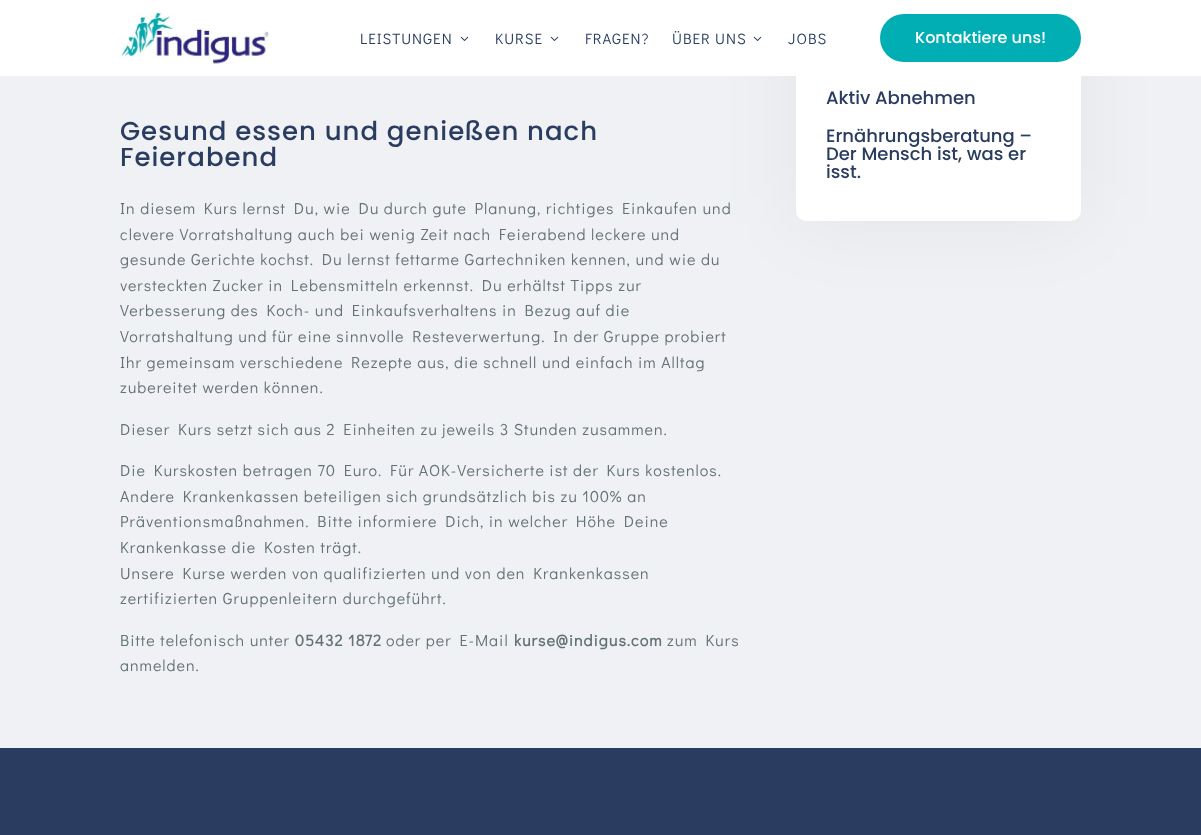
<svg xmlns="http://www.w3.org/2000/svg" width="1201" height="835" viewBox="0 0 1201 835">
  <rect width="100%" height="100%" fill="#f0f1f4"/>
  <rect x="796" y="-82" width="285" height="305" rx="10" fill="#0000000d" filter="blur(40px)"/>
  <rect x="796" y="-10" width="285" height="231" rx="10" fill="#fff"/>
  <path d="M0 0h1201v76H0z" fill="#fff"/>
  <image x="120" y="12" width="149" height="52" href="img/1.png"/>
  <image x="460" y="36" width="9" height="5" href="img/2.png"/>
  <image x="550" y="36" width="9" height="5" href="img/2.png"/>
  <image x="753" y="36" width="9" height="5" href="img/2.png"/>
  <rect x="880" y="14" width="201" height="48" rx="24" fill="#00aeb3"/>
  <path d="M0 748h1201v87H0z" fill="#2a3d60"/>
  <g font-family="Didact Gothic" font-size="15" letter-spacing="1" fill="#2a3d60">
    <text x="360" y="44">LEISTUNGEN</text>
    <text x="495" y="44">KURSE</text>
    <text x="585" y="44">FRAGEN?</text>
    <text x="672" y="44">ÜBER UNS</text>
    <text x="788" y="44">JOBS</text>
  </g>
  <text x="915" y="43" font-family="Poppins" font-size="16" font-weight="500" fill="#fff">Kontaktiere uns!</text>
  <g font-family="Poppins" font-size="26" font-weight="500" letter-spacing="1" fill="#2a3d60">
    <text x="120" y="140">Gesund essen und genießen nach</text>
    <text x="120" y="166">Feierabend</text>
  </g>
  <g font-family="Didact Gothic" font-size="16" letter-spacing="1" fill="#627275">
    <text x="120" y="214">In diesem Kurs lernst Du, wie Du durch gute Planung, richtiges Einkaufen und</text>
    <text x="120" y="240">clevere Vorratshaltung auch bei wenig Zeit nach Feierabend leckere und</text>
    <text x="120" y="265">gesunde Gerichte kochst. Du lernst fettarme Gartechniken kennen, und wie du</text>
    <text x="120" y="291">versteckten Zucker in Lebensmitteln erkennst. Du erhältst Tipps zur</text>
    <text x="120" y="316">Verbesserung des Koch- und Einkaufsverhaltens in Bezug auf die</text>
    <text x="120" y="342">Vorratshaltung und für eine sinnvolle Resteverwertung. In der Gruppe probiert</text>
    <text x="120" y="368">Ihr gemeinsam verschiedene Rezepte aus, die schnell und einfach im Alltag</text>
    <text x="120" y="393">zubereitet werden können.</text>
    <text x="120" y="435">Dieser Kurs setzt sich aus 2 Einheiten zu jeweils 3 Stunden zusammen.</text>
    <text x="120" y="476">Die Kurskosten betragen 70 Euro. Für AOK-Versicherte ist der Kurs kostenlos.</text>
    <text x="120" y="502">Andere Krankenkassen beteiligen sich grundsätzlich bis zu 100% an</text>
    <text x="120" y="527">Präventionsmaßnahmen. Bitte informiere Dich, in welcher Höhe Deine</text>
    <text x="120" y="553">Krankenkasse die Kosten trägt.</text>
    <text x="120" y="579">Unsere Kurse werden von qualifizierten und von den Krankenkassen</text>
    <text x="120" y="604">zertifizierten Gruppenleitern durchgeführt.</text>
    <text x="120" y="646">Bitte telefonisch unter</text>
  </g>
  <text x="295" y="646" font-family="Didact Gothic" font-size="16" font-weight="bold" letter-spacing="1" fill="#627275">05432 1872</text>
  <text x="386" y="646" font-family="Didact Gothic" font-size="16" letter-spacing="1" fill="#627275">oder per E-Mail</text>
  <text x="514" y="646" font-family="Didact Gothic" font-size="16" font-weight="bold" letter-spacing="1" fill="#627275">kurse@indigus.com</text>
  <g font-family="Didact Gothic" font-size="16" letter-spacing="1" fill="#627275">
    <text x="667" y="646">zum Kurs</text>
    <text x="120" y="671">anmelden.</text>
  </g>
  <g font-family="Poppins" font-size="18" font-weight="500" fill="#2a3d60">
    <text x="826" y="104">Aktiv Abnehmen</text>
    <text x="826" y="142">Ernährungsberatung –</text>
    <text x="826" y="160">Der Mensch ist, was er</text>
    <text x="826" y="178">isst.</text>
  </g>
</svg>
